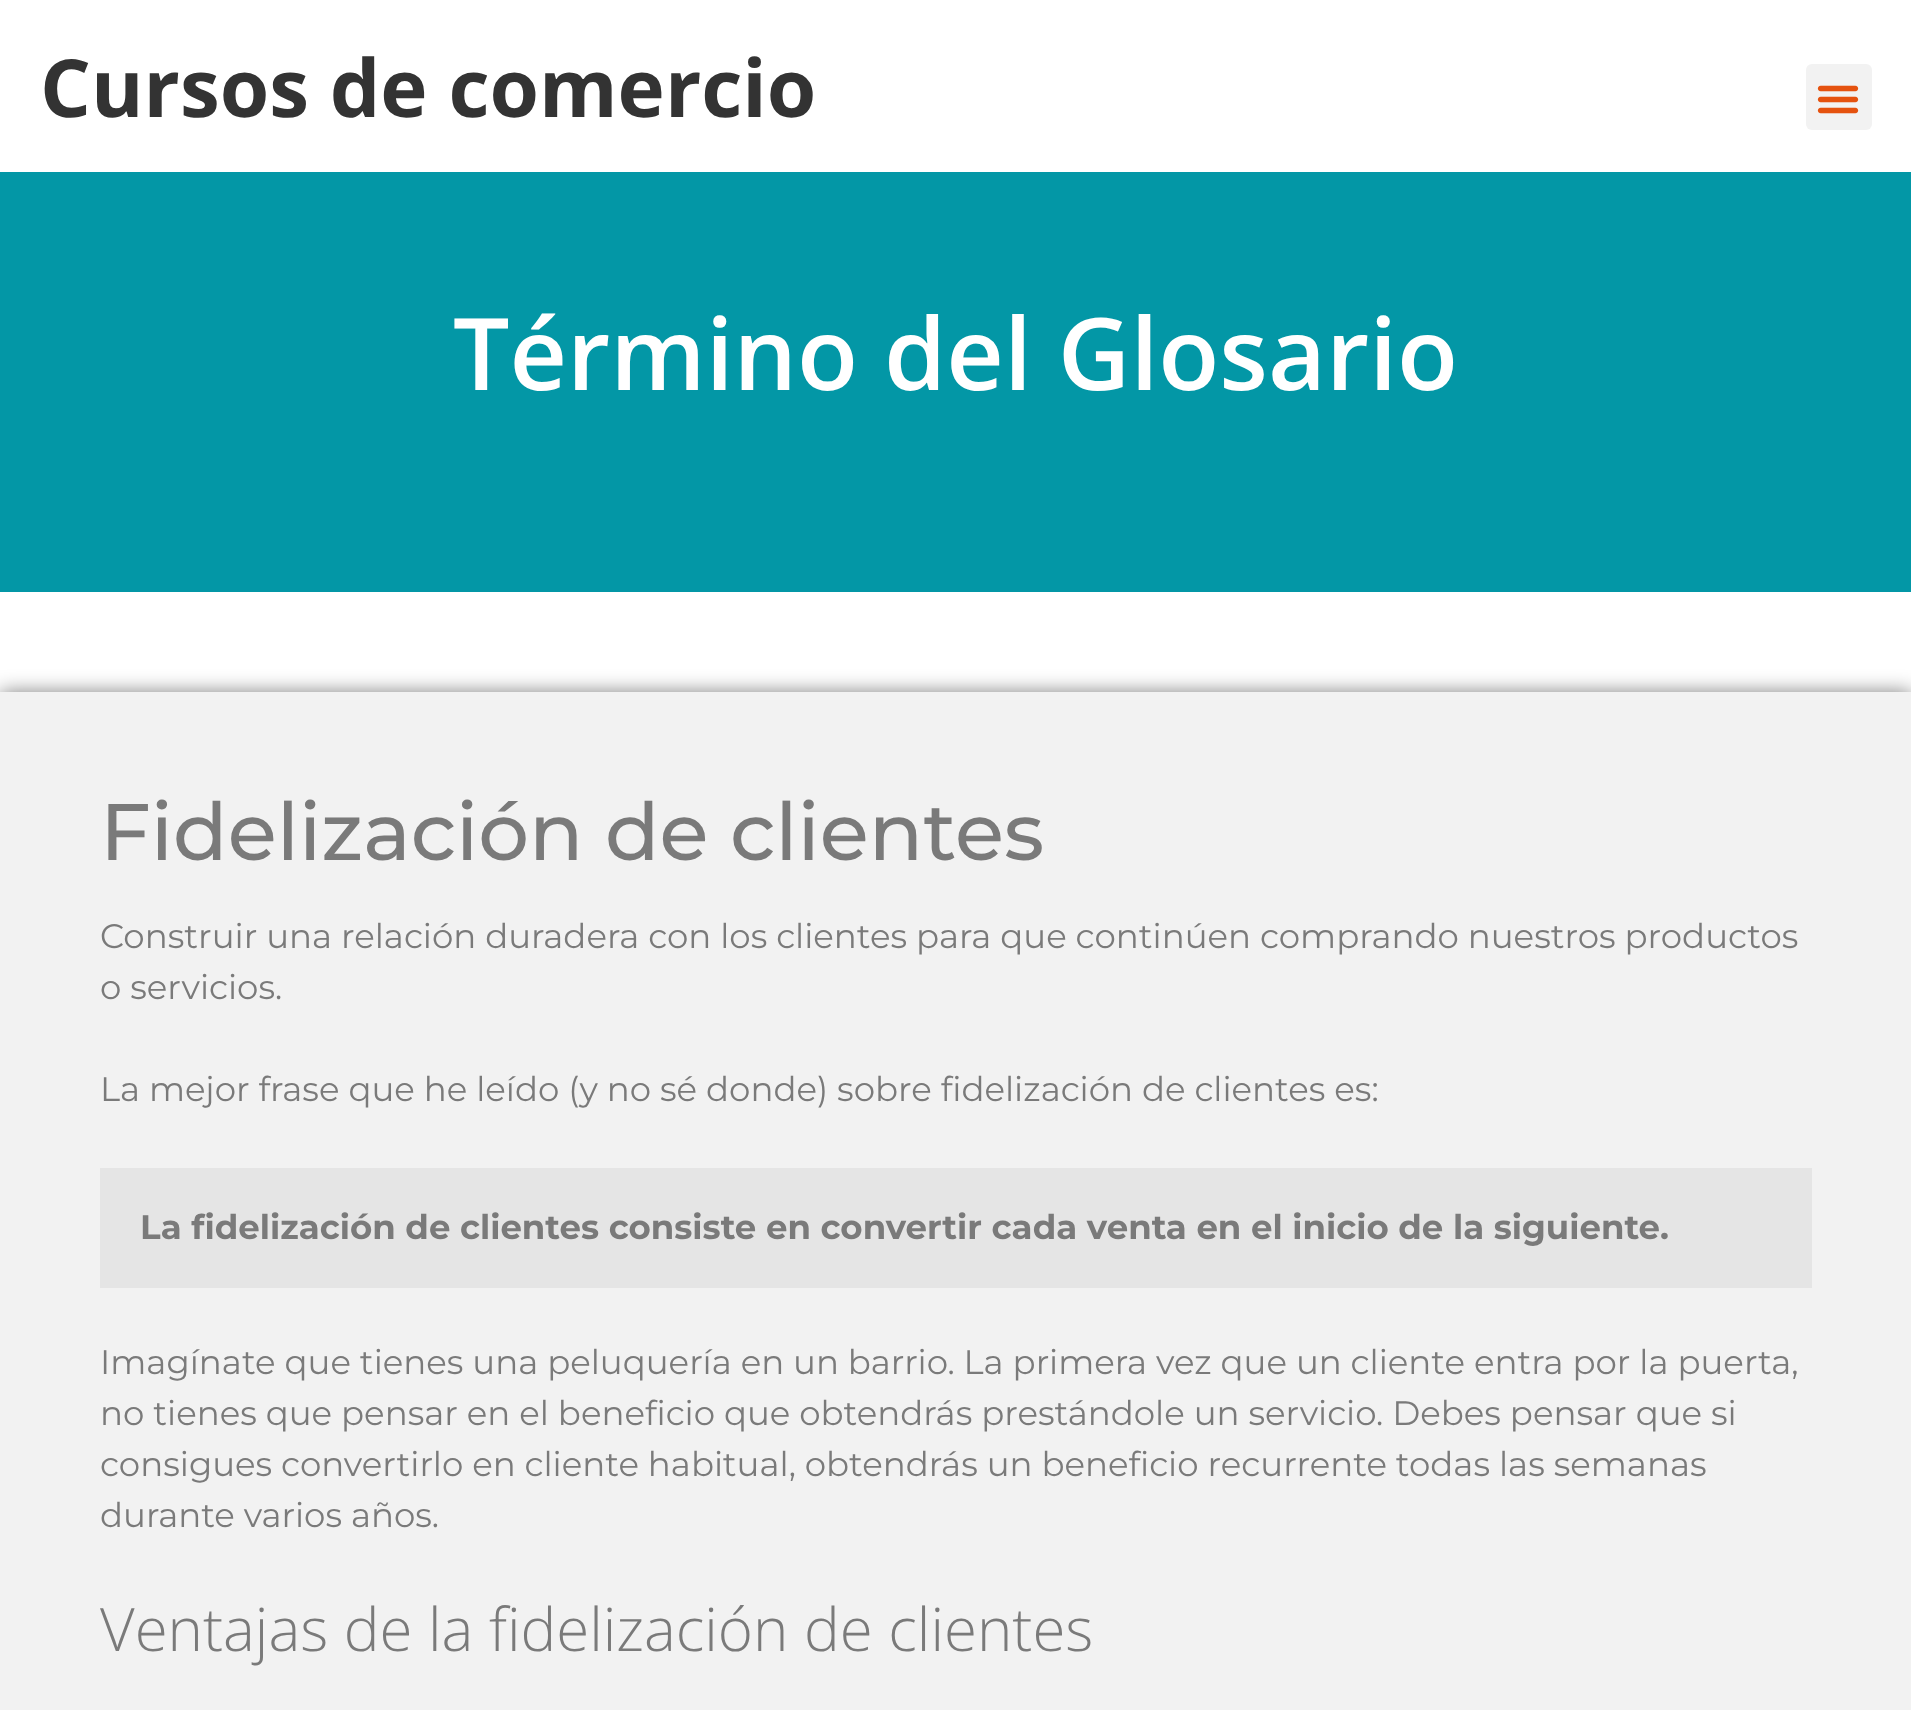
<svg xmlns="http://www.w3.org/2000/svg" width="1911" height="1710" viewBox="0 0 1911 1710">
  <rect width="100%" height="100%" fill="#fff"/>
  <rect x="1806" y="64" width="66" height="66" rx="6" fill="#f2f2f2"/>
  <image x="1817" y="85" width="42" height="29" href="img/1.png"/>
  <path d="M0 172h1911v420H0z" fill="#0397a6"/>
  <path d="M0 692h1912v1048H0z" fill="#00000080" filter="blur(10px)"/>
  <path d="M0 692h1911v1018H0z" fill="#f2f2f2"/>
  <path d="M100 1168h1712v120H100z" fill="#e5e5e5"/>
  <text x="40" y="117" font-family="Open Sans" font-size="80" font-weight="bold" fill="#333">Cursos de comercio</text>
  <text x="453" y="390" font-family="Open Sans" font-size="100" font-weight="600" fill="#fff">Término del Glosario</text>
  <text x="100" y="860" font-family="Montserrat" font-size="80" font-weight="500" fill="#7a7a7a">Fidelización de clientes</text>
  <g font-family="Montserrat" font-size="34" fill="#7a7a7a">
    <text x="100" y="948">Construir una relación duradera con los clientes para que continúen comprando nuestros productos</text>
    <text x="100" y="999">o servicios.</text>
    <text x="100" y="1101">La mejor frase que he leído (y no sé donde) sobre fidelización de clientes es:</text>
  </g>
  <text x="140" y="1239" font-family="Montserrat" font-size="34" font-weight="bold" fill="#7a7a7a">La fidelización de clientes consiste en convertir cada venta en el inicio de la siguiente.</text>
  <g font-family="Montserrat" font-size="34" fill="#7a7a7a">
    <text x="100" y="1374">Imagínate que tienes una peluquería en un barrio. La primera vez que un cliente entra por la puerta,</text>
    <text x="100" y="1425">no tienes que pensar en el beneficio que obtendrás prestándole un servicio. Debes pensar que si</text>
    <text x="100" y="1476">consigues convertirlo en cliente habitual, obtendrás un beneficio recurrente todas las semanas</text>
    <text x="100" y="1527">durante varios años.</text>
  </g>
  <text x="100" y="1651" font-family="Open Sans" font-size="60" font-weight="300" fill="#7a7a7a">Ventajas de la fidelización de clientes</text>
</svg>
